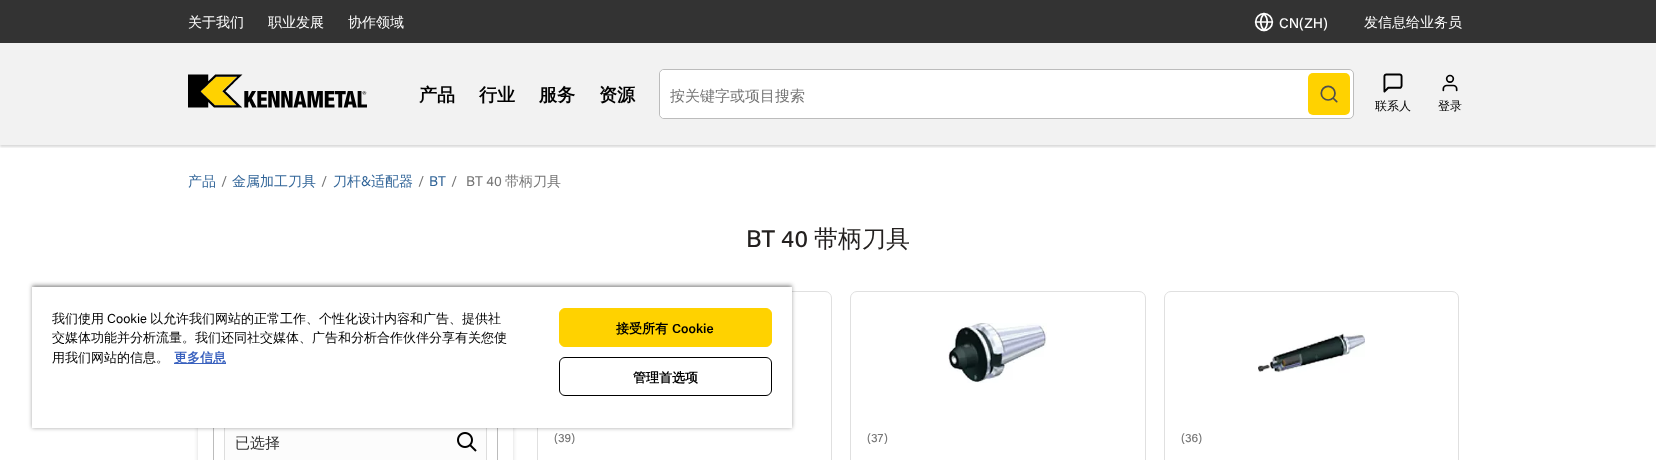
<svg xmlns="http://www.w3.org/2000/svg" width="1656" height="460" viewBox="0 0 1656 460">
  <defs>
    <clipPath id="clip1"><path d="M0 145h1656v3H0z"/></clipPath>
    <clipPath id="clip2"><path d="M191 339H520V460H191ZM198 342H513V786H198Z" clip-rule="evenodd"/></clipPath>
    <clipPath id="clip3"><path d="M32 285h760v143H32z"/></clipPath>
  </defs>
  <rect width="100%" height="100%" fill="#fff"/>
  <path d="M0 43h1656v102H0z" fill="#f2f2f2"/>
  <path d="M0 0h1656v43H0z" fill="#333"/>
  <image x="1254" y="12" width="20" height="20" href="img/1.png"/>
  <g clip-path="url(#clip1)">
    <path d="M0 45h1656v102H0z" fill="#00000026" filter="blur(1px)"/>
  </g>
  <image x="188" y="74" width="179" height="34" href="img/2.png"/>
  <rect x="659.5" y="69.5" width="694" height="49" rx="4.5" fill="#fff" stroke="#bcbcbc"/>
  <path d="M664 70H1308V118H664C662 118 660 116 660 114V74C660 72 662 70 664 70Z" fill="#fff"/>
  <rect x="1308" y="73" width="42" height="42" rx="5" fill="#ffd200"/>
  <image x="1320" y="85" width="18" height="18" href="img/3.png"/>
  <image x="1383" y="73" width="20" height="20" href="img/4.png"/>
  <image x="1442" y="74" width="16" height="18" href="img/5.png"/>
  <g clip-path="url(#clip2)">
    <path d="M198 346h315v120H198z" fill="#00000026" filter="blur(2px)"/>
  </g>
  <path d="M213.5 352.5h284v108H213.5z" fill="none" stroke="#bcbcbc"/>
  <path d="M225 428h261v32H225z" fill="#fcfcfc"/>
  <path d="M224.5 422.5h262v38H224.5z" fill="none" stroke="#ddd"/>
  <image x="457" y="432" width="20" height="20" href="img/6.png"/>
  <rect x="537.5" y="291.5" width="294" height="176" rx="6.5" fill="none" stroke="#e0e0e0"/>
  <rect x="850.5" y="291.5" width="295" height="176" rx="6.5" fill="none" stroke="#e0e0e0"/>
  <image x="948" y="323" width="99" height="60" href="img/7.png"/>
  <rect x="1164.5" y="291.5" width="294" height="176" rx="6.5" fill="none" stroke="#e0e0e0"/>
  <image x="1258" y="332" width="107" height="41" href="img/8.png"/>
  <path d="M32 285h760v143H32z" fill="#00000059" filter="blur(2px)"/>
  <g clip-path="url(#clip3)">
    <path d="M32 287h760v141H32z" fill="#00000033" filter="blur(2px)"/>
  </g>
  <path d="M32 287h760v141H32z" fill="#fff"/>
  <path d="M174 363h52v1H174z" fill="#3860be"/>
  <rect x="559.5" y="308.5" width="212" height="38" rx="5.5" fill="#ffd200" stroke="#ffd200"/>
  <rect x="559.5" y="357.5" width="212" height="38" rx="5.5" fill="none" stroke="#000"/>
  <g font-family="WenQuanYi Zen Hei" font-size="14" font-weight="500" fill="#fff">
    <text x="188" y="27">关于我们</text>
    <text x="268" y="27">职业发展</text>
    <text x="348" y="27">协作领域</text>
  </g>
  <text x="1279" y="28" font-family="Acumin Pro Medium" font-size="14" font-weight="500" fill="#fff">CN(ZH)</text>
  <text x="1364" y="27" font-family="WenQuanYi Zen Hei" font-size="14" font-weight="500" fill="#fff">发信息给业务员</text>
  <g font-family="WenQuanYi Zen Hei" font-size="18" font-weight="bold" fill="#000">
    <text x="419" y="101">产品</text>
    <text x="479" y="101">行业</text>
    <text x="539" y="101">服务</text>
    <text x="599" y="101">资源</text>
  </g>
  <text x="670" y="101" font-family="WenQuanYi Zen Hei" font-size="15" font-weight="500" fill="#757575">按关键字或项目搜索</text>
  <g font-family="WenQuanYi Zen Hei" font-size="12" font-weight="500" fill="#000">
    <text x="1375" y="110">联系人</text>
    <text x="1438" y="110">登录</text>
  </g>
  <text x="188" y="186" font-family="WenQuanYi Zen Hei" font-size="14" font-weight="500" fill="#369">产品</text>
  <text x="221" y="186" font-family="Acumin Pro" font-size="14" fill="#757575">/</text>
  <text x="232" y="186" font-family="WenQuanYi Zen Hei" font-size="14" font-weight="500" fill="#369">金属加工刀具</text>
  <text x="321" y="186" font-family="Acumin Pro" font-size="14" fill="#757575">/</text>
  <text x="333" y="186" font-family="WenQuanYi Zen Hei" font-size="14" font-weight="500" fill="#369">刀杆</text>
  <text x="361" y="186" font-family="Acumin Pro" font-size="14" fill="#369">&amp;</text>
  <text x="371" y="186" font-family="WenQuanYi Zen Hei" font-size="14" font-weight="500" fill="#369">适配器</text>
  <text x="418" y="186" font-family="Acumin Pro" font-size="14" fill="#757575">/</text>
  <text x="429" y="186" font-family="Acumin Pro" font-size="14" fill="#369">BT</text>
  <g font-family="Acumin Pro" font-size="14" fill="#757575">
    <text x="451" y="186">/</text>
    <text x="466" y="186">BT 40</text>
  </g>
  <text x="505" y="186" font-family="WenQuanYi Zen Hei" font-size="14" font-weight="500" fill="#757575">带柄刀具</text>
  <text x="746" y="247" font-family="Acumin Pro Medium" font-size="24" font-weight="500" fill="#23201f">BT 40</text>
  <text x="814" y="247" font-family="WenQuanYi Zen Hei" font-size="24" font-weight="500" fill="#23201f">带柄刀具</text>
  <text x="235" y="448" font-family="WenQuanYi Zen Hei" font-size="15" font-weight="500" fill="#333">已选择</text>
  <g font-family="Acumin Pro Medium" font-size="12" font-weight="500" fill="#757575">
    <text x="554" y="442">(39)</text>
    <text x="867" y="442">(37)</text>
    <text x="1181" y="442">(36)</text>
  </g>
  <text x="52" y="323" font-family="WenQuanYi Zen Hei" font-size="13" font-weight="500" fill="#000">我们使用</text>
  <text x="107" y="323" font-family="Acumin Pro" font-size="13" fill="#000">Cookie</text>
  <g font-family="WenQuanYi Zen Hei" font-size="13" font-weight="500" fill="#000">
    <text x="150" y="323">以允许我们网站的正常工作、个性化设计内容和广告、提供社</text>
    <text x="52" y="342">交媒体功能并分析流量。我们还同社交媒体、广告和分析合作伙伴分享有关您使</text>
    <text x="52" y="362">用我们网站的信息。</text>
  </g>
  <text x="174" y="362" font-family="WenQuanYi Zen Hei" font-size="13" font-weight="bold" fill="#3860be">更多信息</text>
  <text x="616" y="333" font-family="WenQuanYi Zen Hei" font-size="13" font-weight="bold" fill="#000">接受所有</text>
  <text x="672" y="333" font-family="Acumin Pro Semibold" font-size="13" font-weight="600" fill="#000">Cookie</text>
  <text x="633" y="382" font-family="WenQuanYi Zen Hei" font-size="13" font-weight="bold" fill="#000">管理首选项</text>
</svg>
